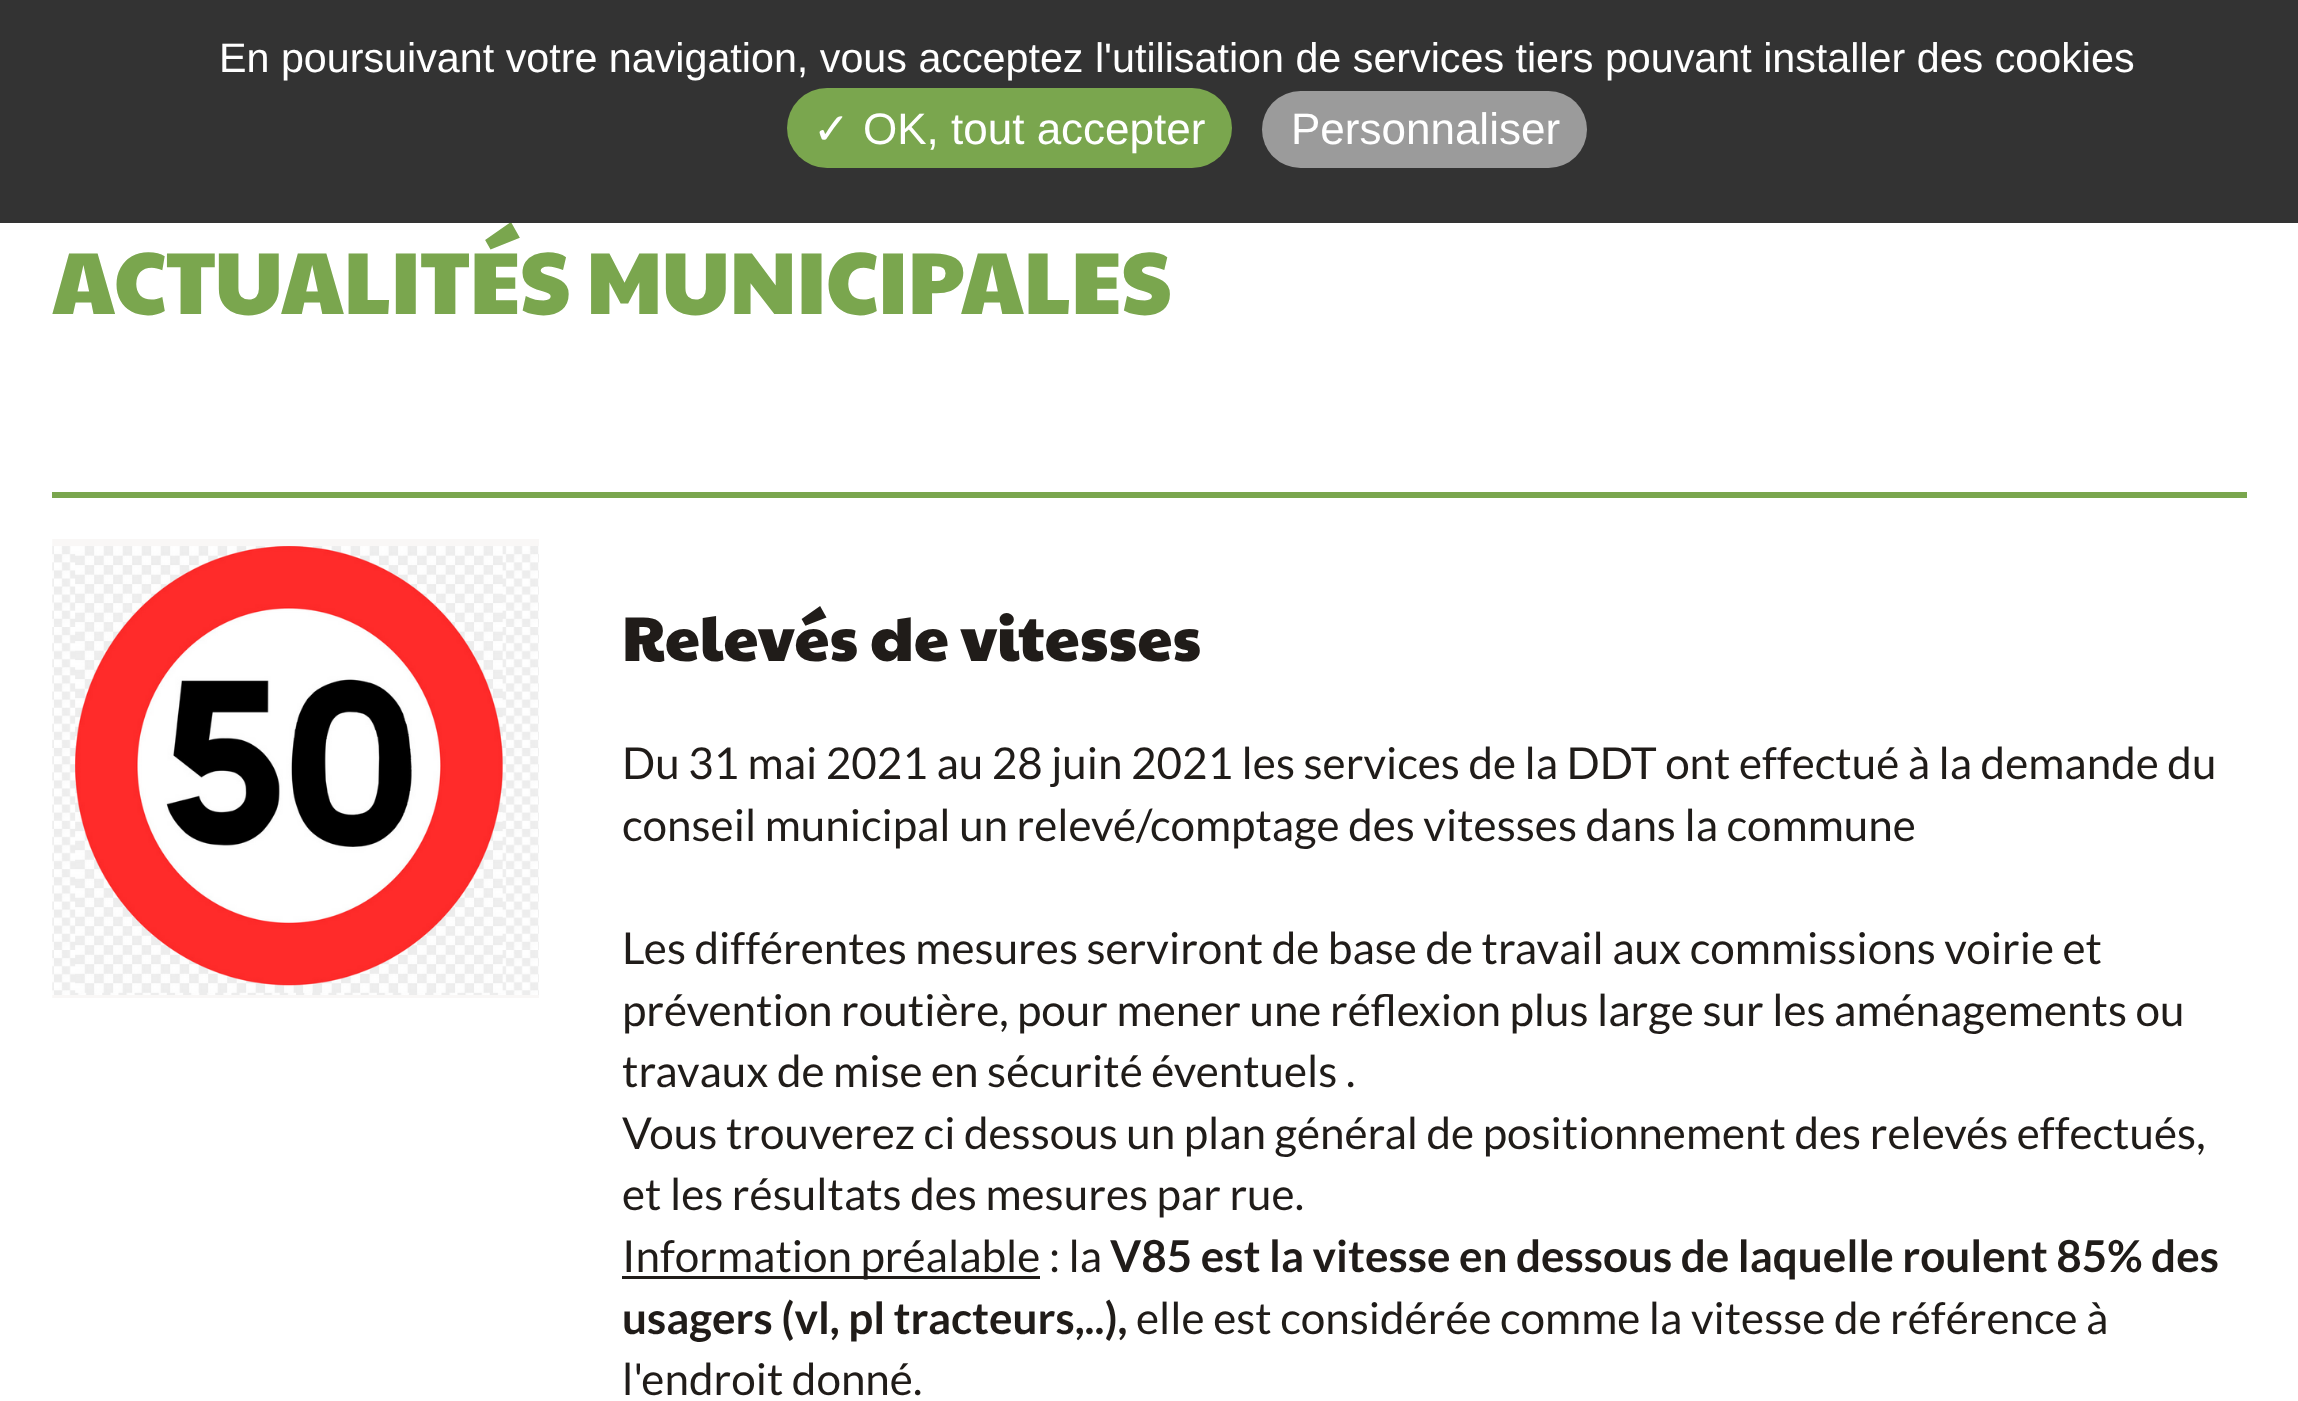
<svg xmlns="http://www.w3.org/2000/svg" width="2298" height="1401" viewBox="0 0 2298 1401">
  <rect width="100%" height="100%" fill="#fff"/>
  <path d="M52 492h2195v6H52z" fill="#7aa64e"/>
  <image x="52" y="539" width="487" height="459" href="img/1.png"/>
  <path d="M622 1276h418v3H622z" fill="#201c19"/>
  <text x="52" y="314" font-family="Paytone One" font-size="88" fill="#7aa64e">ACTUALITÉS MUNICIPALES</text>
  <path d="M0 0h2298v223H0z" fill="#333"/>
  <rect x="1262" y="91" width="325" height="77" rx="38.5" fill="#9b9b9b"/>
  <text x="1291" y="144" font-family="Liberation Sans" font-size="44" fill="#fff">Personnaliser</text>
  <rect x="787" y="88" width="445" height="80" rx="40" fill="#7aa64e"/>
  <text x="863" y="144" font-family="Liberation Sans" font-size="44" fill="#fff">OK, tout accepter</text>
  <text x="813" y="144" font-family="DejaVu Sans" font-size="44" fill="#fff">✓</text>
  <text x="219" y="72" font-family="Liberation Sans" font-size="41.25" fill="#fff">En poursuivant votre navigation, vous acceptez l'utilisation de services tiers pouvant installer des cookies</text>
  <text x="622" y="661" font-family="Paytone One" font-size="63.25" fill="#201c19">Relevés de vitesses</text>
  <g font-family="Lato" font-size="44" fill="#201c19">
    <text x="622" y="779">Du 31 mai 2021 au 28 juin 2021 les services de la DDT ont effectué à la demande du</text>
    <text x="622" y="841">conseil municipal un relevé/comptage des vitesses dans la commune</text>
    <text x="622" y="964">Les différentes mesures serviront de base de travail aux commissions voirie et</text>
    <text x="622" y="1026">prévention routière, pour mener une réflexion plus large sur les aménagements ou</text>
    <text x="622" y="1087">travaux de mise en sécurité éventuels .</text>
    <text x="622" y="1149">Vous trouverez ci dessous un plan général de positionnement des relevés effectués,</text>
    <text x="622" y="1210">et les résultats des mesures par rue.</text>
    <text x="622" y="1272">Information préalable : la</text>
  </g>
  <g font-family="Lato" font-size="44" font-weight="bold" fill="#201c19">
    <text x="1110" y="1272">V85 est la vitesse en dessous de laquelle roulent 85% des</text>
    <text x="622" y="1334">usagers (vl, pl tracteurs,..),</text>
  </g>
  <g font-family="Lato" font-size="44" fill="#201c19">
    <text x="1136" y="1334">elle est considérée comme la vitesse de référence à</text>
    <text x="622" y="1395">l'endroit donné.</text>
  </g>
</svg>
